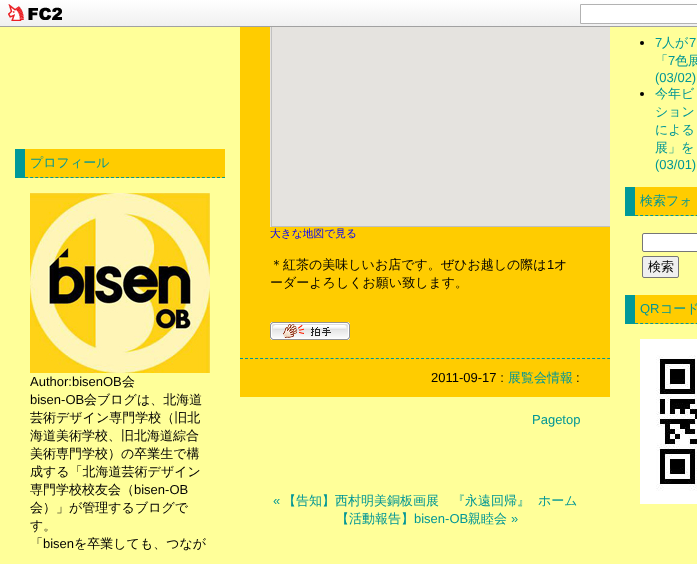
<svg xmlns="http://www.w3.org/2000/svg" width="697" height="564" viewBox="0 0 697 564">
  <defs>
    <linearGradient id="g1" gradientUnits="userSpaceOnUse" x1="0" y1="0" x2="0" y2="26"><stop offset="0" stop-color="#fff"/><stop offset="1" stop-color="#f0f0f0"/></linearGradient>
  </defs>
  <rect width="100%" height="100%" fill="#ff9"/>
  <path d="M0 0h697v26H0z" fill="url(#g1)"/>
  <path d="M0 26h697v1H0z" fill="#a1a1a1"/>
  <image x="8" y="4" width="54" height="17" href="img/1.png"/>
  <path d="M580.5 4.5h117v19H580.5z" fill="#fff" stroke="#b2b2b2"/>
  <path d="M25 149h200v29H25z" fill="#fc0"/>
  <path d="M15 177.5H225" fill="none" stroke="#099" stroke-dasharray="3 2.05"/>
  <path d="M15 149h10v29H15z" fill="#099"/>
  <image x="30" y="193" width="180" height="180" href="img/2.png"/>
  <path d="M240 27h370v370H240z" fill="#fc0"/>
  <image x="270" y="27" width="340" height="200" href="img/3.png"/>
  <image x="270" y="322" width="80" height="18" href="img/4.png"/>
  <path d="M240 358.5H610" fill="none" stroke="#099" stroke-dasharray="3 2.03"/>
  <circle cx="642" cy="43" r="2" fill="#000"/>
  <circle cx="642" cy="94" r="2" fill="#000"/>
  <path d="M635 187h62v29H635z" fill="#fc0"/>
  <path d="M625 215.5H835" fill="none" stroke="#099" stroke-dasharray="3 2.05"/>
  <path d="M625 187h10v29H625z" fill="#099"/>
  <rect x="642.5" y="233.5" width="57" height="18" rx="1.5" fill="#fff" stroke="#767676"/>
  <rect x="642.5" y="256.5" width="36" height="21" rx="1.5" fill="#efefef" stroke="#767676"/>
  <path d="M635 295h62v29H635z" fill="#fc0"/>
  <path d="M625 323.5H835" fill="none" stroke="#099" stroke-dasharray="3 2.05"/>
  <path d="M625 295h10v29H625z" fill="#099"/>
  <image x="640" y="339" width="57" height="165" href="img/5.png"/>
  <text x="30" y="167" font-family="WenQuanYi Zen Hei" font-size="13" font-weight="500" fill="#009696">プロフィール</text>
  <text x="30" y="386" font-family="Liberation Sans" font-size="13" fill="#000">Author:bisenOB</text>
  <text x="122" y="386" font-family="WenQuanYi Zen Hei" font-size="13" font-weight="500" fill="#000">会</text>
  <text x="30" y="404" font-family="Liberation Sans" font-size="13" fill="#000">bisen-OB</text>
  <g font-family="WenQuanYi Zen Hei" font-size="13" font-weight="500" fill="#000">
    <text x="84" y="404">会ブログは、北海道</text>
    <text x="30" y="422">芸術デザイン専門学校（旧北</text>
    <text x="30" y="440">海道美術学校、旧北海道綜合</text>
    <text x="30" y="458">美術専門学校）の卒業生で構</text>
    <text x="30" y="476">成する「北海道芸術デザイン</text>
    <text x="30" y="494">専門学校校友会（</text>
  </g>
  <text x="134" y="494" font-family="Liberation Sans" font-size="13" fill="#000">bisen-OB</text>
  <g font-family="WenQuanYi Zen Hei" font-size="13" font-weight="500" fill="#000">
    <text x="30" y="512">会）」が管理するブログで</text>
    <text x="30" y="530">す。</text>
    <text x="30" y="548">「</text>
  </g>
  <text x="43" y="548" font-family="Liberation Sans" font-size="13" fill="#000">bisen</text>
  <text x="74" y="548" font-family="WenQuanYi Zen Hei" font-size="13" font-weight="500" fill="#000">を卒業しても、つなが</text>
  <text x="270" y="237" font-family="WenQuanYi Zen Hei" font-size="10.75" font-weight="500" fill="#00f">大きな地図で見る</text>
  <text x="270" y="269" font-family="WenQuanYi Zen Hei" font-size="13" font-weight="500" fill="#000">＊紅茶の美味しいお店です。ぜひお越しの際は</text>
  <text x="547" y="269" font-family="Liberation Sans" font-size="13" fill="#000">1</text>
  <g font-family="WenQuanYi Zen Hei" font-size="13" font-weight="500" fill="#000">
    <text x="554" y="269">オ</text>
    <text x="270" y="287">ーダーよろしくお願い致します。</text>
  </g>
  <text x="431" y="382" font-family="Liberation Sans" font-size="13" fill="#000">2011-09-17 :</text>
  <text x="508" y="382" font-family="WenQuanYi Zen Hei" font-size="13" font-weight="500" fill="#009696">展覧会情報</text>
  <text x="576" y="382" font-family="Liberation Sans" font-size="13" fill="#000">:</text>
  <g font-family="Liberation Sans" font-size="13" fill="#009696">
    <text x="532" y="424">Pagetop</text>
    <text x="273" y="505">«</text>
  </g>
  <g font-family="WenQuanYi Zen Hei" font-size="13" font-weight="500" fill="#009696">
    <text x="283" y="505">【告知】西村明美銅板画展　『永遠回帰』</text>
    <text x="538" y="505">ホーム</text>
    <text x="336" y="523">【活動報告】</text>
  </g>
  <text x="414" y="523" font-family="Liberation Sans" font-size="13" fill="#009696">bisen-OB</text>
  <text x="468" y="523" font-family="WenQuanYi Zen Hei" font-size="13" font-weight="500" fill="#009696">親睦会</text>
  <g font-family="Liberation Sans" font-size="13" fill="#009696">
    <text x="511" y="523">»</text>
    <text x="655" y="47">7</text>
  </g>
  <text x="662" y="47" font-family="WenQuanYi Zen Hei" font-size="13" font-weight="500" fill="#009696">人が</text>
  <text x="689" y="47" font-family="Liberation Sans" font-size="13" fill="#009696">7</text>
  <text x="655" y="65" font-family="WenQuanYi Zen Hei" font-size="13" font-weight="500" fill="#009696">「</text>
  <text x="668" y="65" font-family="Liberation Sans" font-size="13" fill="#009696">7</text>
  <text x="675" y="65" font-family="WenQuanYi Zen Hei" font-size="13" font-weight="500" fill="#009696">色展</text>
  <text x="655" y="82" font-family="Liberation Sans" font-size="13" fill="#009696">(03/02)</text>
  <g font-family="WenQuanYi Zen Hei" font-size="13" font-weight="500" fill="#009696">
    <text x="655" y="98">今年ビ</text>
    <text x="655" y="116">ション</text>
    <text x="655" y="134">による</text>
    <text x="655" y="152">展」を</text>
  </g>
  <text x="655" y="169" font-family="Liberation Sans" font-size="13" fill="#009696">(03/01)</text>
  <text x="640" y="205" font-family="WenQuanYi Zen Hei" font-size="13" font-weight="500" fill="#009696">検索フォ</text>
  <text x="648" y="271" font-family="WenQuanYi Zen Hei" font-size="13" font-weight="500" fill="#000">検索</text>
  <text x="640" y="313" font-family="Liberation Sans" font-size="13" fill="#009696">QR</text>
  <text x="660" y="313" font-family="WenQuanYi Zen Hei" font-size="13" font-weight="500" fill="#009696">コード</text>
</svg>
